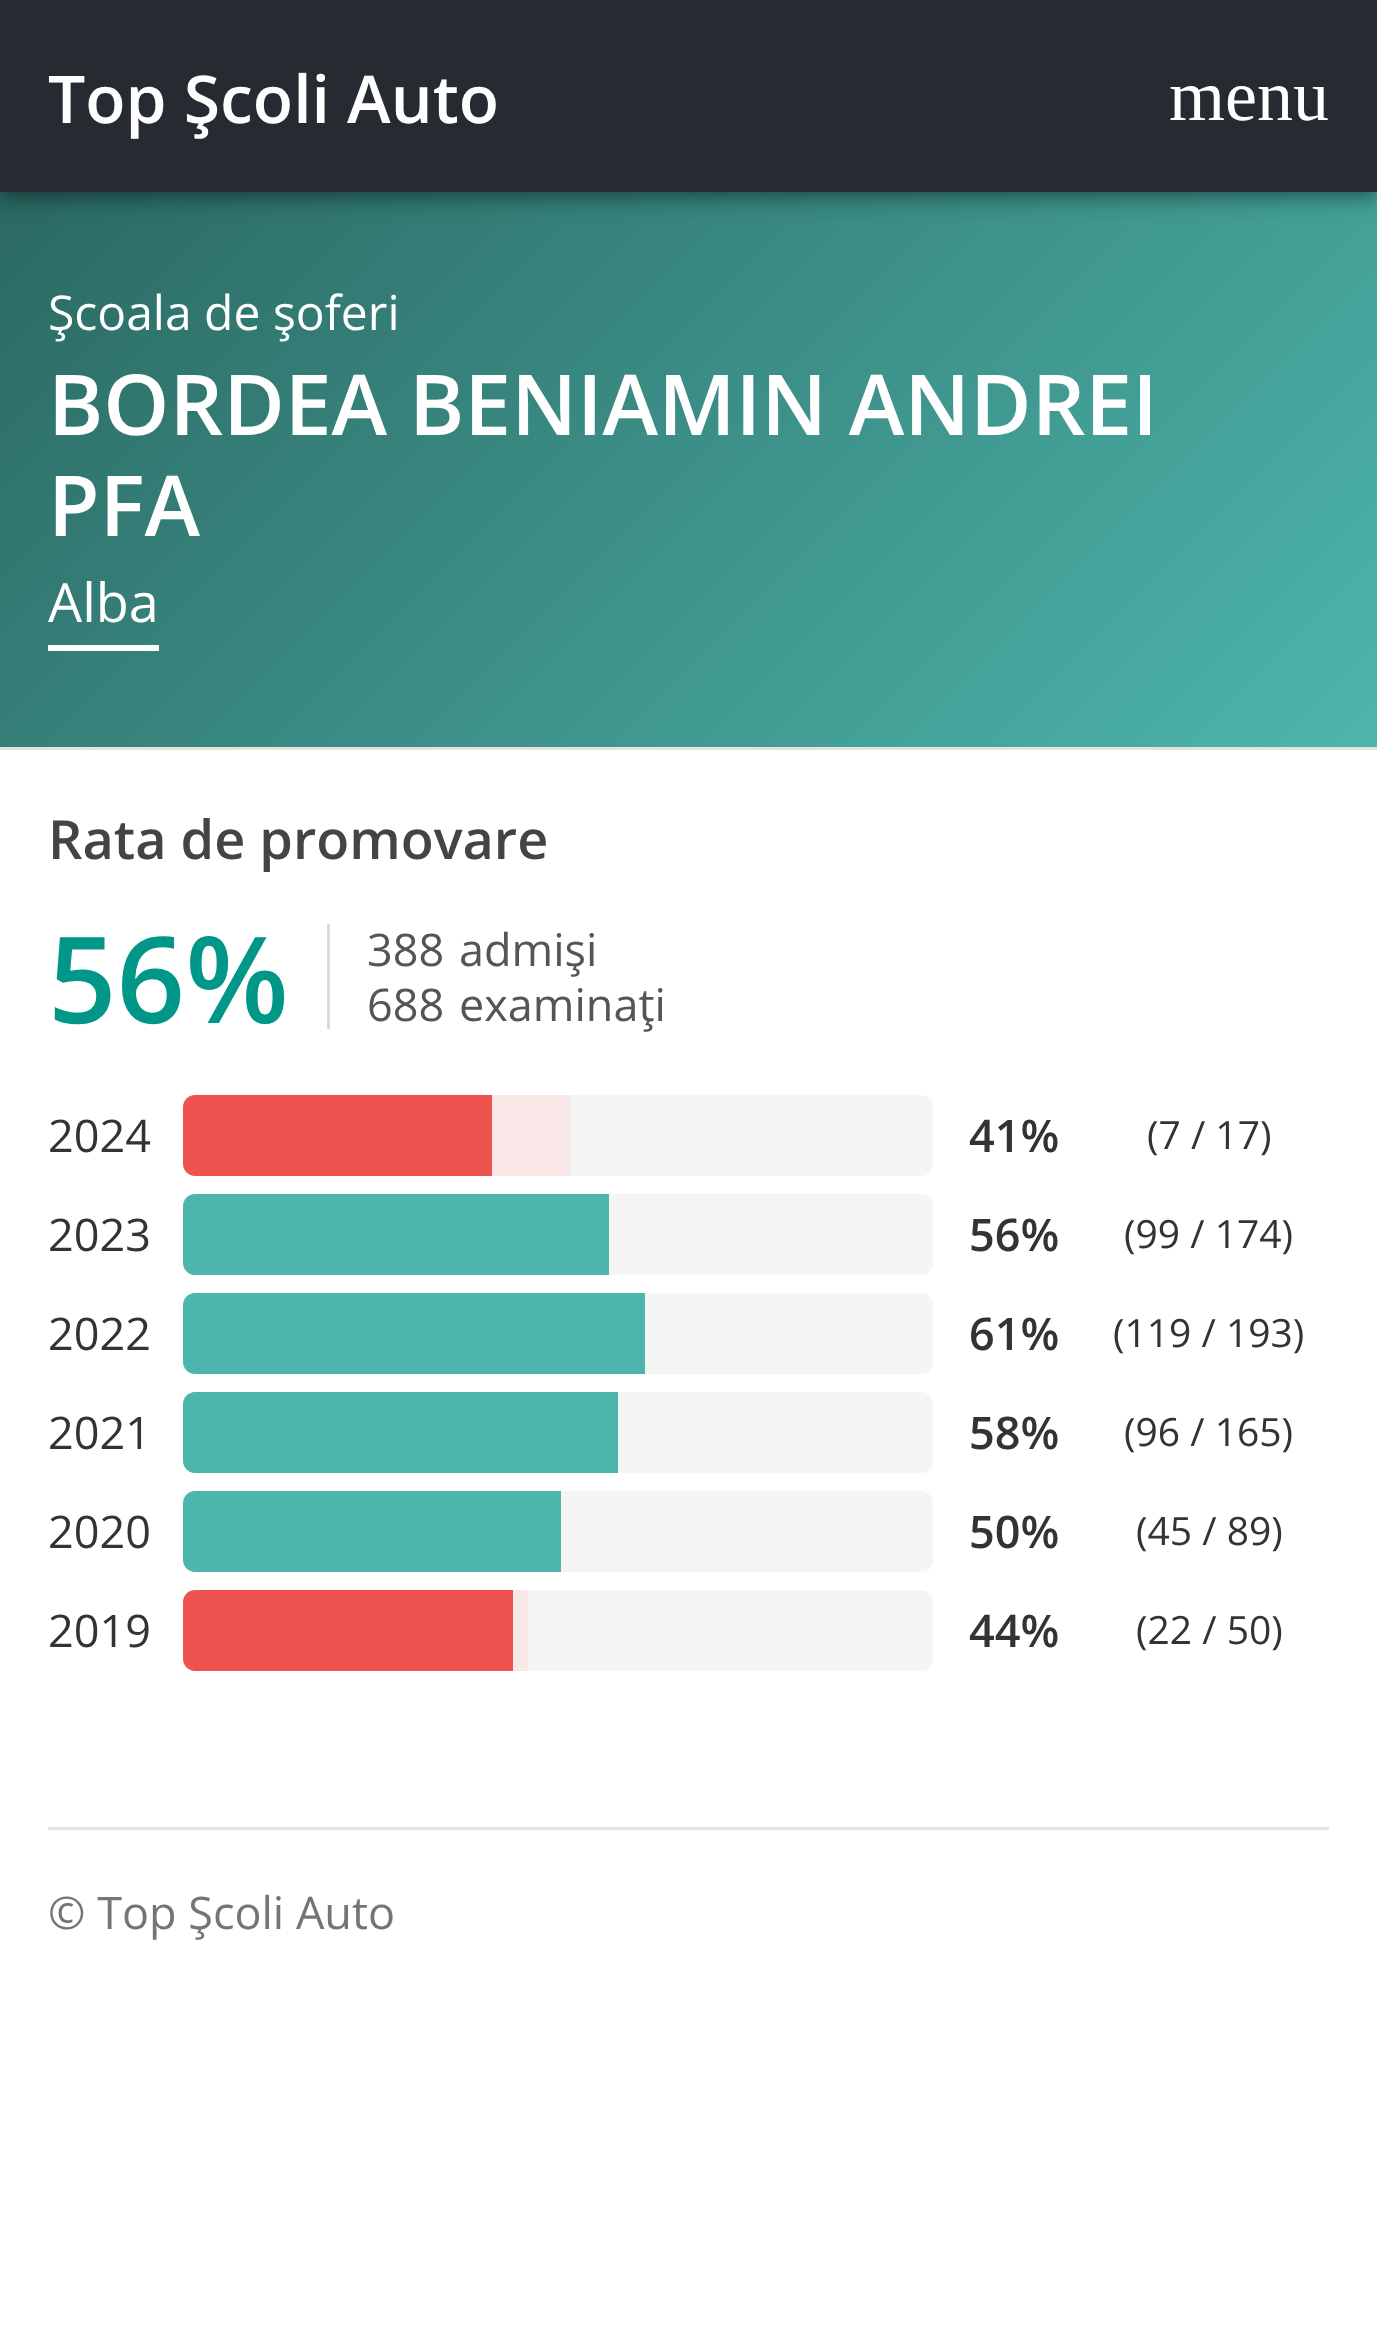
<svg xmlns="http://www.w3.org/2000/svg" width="1377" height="2342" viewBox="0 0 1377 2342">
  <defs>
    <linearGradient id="g1" gradientUnits="userSpaceOnUse" x1="1172" y1="953" x2="206" y2="-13"><stop offset="0" stop-color="#4db6ac"/><stop offset="1" stop-color="#2b6963"/></linearGradient>
  </defs>
  <rect width="100%" height="100%" fill="#fff"/>
  <path d="M0 192h1377v555H0z" fill="url(#g1)"/>
  <path d="M3 9h1371v186H3z" fill="#00000033" filter="blur(6px)"/>
  <path d="M0 3h1377v192H0z" fill="#0000001f" filter="blur(15px)"/>
  <path d="M0 12h1377v192H0z" fill="#00000024" filter="blur(7.5px)"/>
  <path d="M0 0h1377v192H0z" fill="#252b31"/>
  <path d="M48 645h111v6H48z" fill="#fff"/>
  <path d="M0 747h1377v3H0z" fill="#e5e3dd"/>
  <path d="M327 924h3v105H327z" fill="#dadada"/>
  <rect x="183" y="1095" width="750" height="81" rx="12" fill="#f5f5f5"/>
  <path d="M195 1095H492V1176H195C188.5 1176 183 1170.5 183 1164V1107C183 1100.5 188.5 1095 195 1095Z" fill="#ef5350"/>
  <path d="M492 1095h78v81H492z" fill="#f9e7e8"/>
  <rect x="183" y="1194" width="750" height="81" rx="12" fill="#f5f5f5"/>
  <path d="M195 1194H609V1275H195C188.5 1275 183 1269.5 183 1263V1206C183 1199.5 188.5 1194 195 1194Z" fill="#4db6ac"/>
  <rect x="183" y="1293" width="750" height="81" rx="12" fill="#f5f5f5"/>
  <path d="M195 1293H645V1374H195C188.5 1374 183 1368.5 183 1362V1305C183 1298.5 188.5 1293 195 1293Z" fill="#4db6ac"/>
  <rect x="183" y="1392" width="750" height="81" rx="12" fill="#f5f5f5"/>
  <path d="M195 1392H618V1473H195C188.5 1473 183 1467.5 183 1461V1404C183 1397.5 188.5 1392 195 1392Z" fill="#4db6ac"/>
  <rect x="183" y="1491" width="750" height="81" rx="12" fill="#f5f5f5"/>
  <path d="M195 1491H561V1572H195C188.5 1572 183 1566.5 183 1560V1503C183 1496.5 188.5 1491 195 1491Z" fill="#4db6ac"/>
  <rect x="183" y="1590" width="750" height="81" rx="12" fill="#f5f5f5"/>
  <path d="M195 1590H513V1671H195C188.5 1671 183 1665.5 183 1659V1602C183 1595.5 188.5 1590 195 1590Z" fill="#ef5350"/>
  <path d="M513 1590h15v81H513z" fill="#f9e7e8"/>
  <path d="M48 1827h1281v3H48z" fill="#e5e3dd"/>
  <text x="48" y="123" font-family="Open Sans" font-size="66" font-weight="600" fill="#fff">Top Şcoli Auto</text>
  <text x="1169" y="120" font-family="Liberation Serif" font-size="72" fill="#fff">menu</text>
  <text x="48" y="330" font-family="Open Sans" font-size="48" fill="#fff">Şcoala de şoferi</text>
  <g font-family="Open Sans" font-size="84" font-weight="600" fill="#fff">
    <text x="48" y="435">BORDEA BENIAMIN ANDREI</text>
    <text x="48" y="536">PFA</text>
  </g>
  <text x="48" y="622" font-family="Open Sans" font-size="54" fill="#fff">Alba</text>
  <text x="48" y="859" font-family="Open Sans" font-size="54" font-weight="600" fill="#444">Rata de promovare</text>
  <text x="48" y="1023" font-family="Open Sans" font-size="120" font-weight="600" fill="#009688">56%</text>
  <g font-family="Open Sans" font-size="45" fill="#555">
    <text x="367" y="966">388</text>
    <text x="459" y="966">admişi</text>
    <text x="367" y="1021">688</text>
    <text x="459" y="1021">examinaţi</text>
  </g>
  <text x="48" y="1152" font-family="Open Sans" font-size="45" fill="#333">2024</text>
  <text x="969" y="1152" font-family="Open Sans" font-size="45" font-weight="600" fill="#333">41%</text>
  <text x="1147" y="1149" font-family="Open Sans" font-size="39" fill="#333">(7 / 17)</text>
  <text x="48" y="1251" font-family="Open Sans" font-size="45" fill="#333">2023</text>
  <text x="969" y="1251" font-family="Open Sans" font-size="45" font-weight="600" fill="#333">56%</text>
  <text x="1124" y="1248" font-family="Open Sans" font-size="39" fill="#333">(99 / 174)</text>
  <text x="48" y="1350" font-family="Open Sans" font-size="45" fill="#333">2022</text>
  <text x="969" y="1350" font-family="Open Sans" font-size="45" font-weight="600" fill="#333">61%</text>
  <text x="1113" y="1347" font-family="Open Sans" font-size="39" fill="#333">(119 / 193)</text>
  <text x="48" y="1449" font-family="Open Sans" font-size="45" fill="#333">2021</text>
  <text x="969" y="1449" font-family="Open Sans" font-size="45" font-weight="600" fill="#333">58%</text>
  <text x="1124" y="1446" font-family="Open Sans" font-size="39" fill="#333">(96 / 165)</text>
  <text x="48" y="1548" font-family="Open Sans" font-size="45" fill="#333">2020</text>
  <text x="969" y="1548" font-family="Open Sans" font-size="45" font-weight="600" fill="#333">50%</text>
  <text x="1136" y="1545" font-family="Open Sans" font-size="39" fill="#333">(45 / 89)</text>
  <text x="48" y="1647" font-family="Open Sans" font-size="45" fill="#333">2019</text>
  <text x="969" y="1647" font-family="Open Sans" font-size="45" font-weight="600" fill="#333">44%</text>
  <text x="1136" y="1644" font-family="Open Sans" font-size="39" fill="#333">(22 / 50)</text>
  <text x="48" y="1929" font-family="Open Sans" font-size="45" fill="#757575">© Top Şcoli Auto</text>
</svg>
